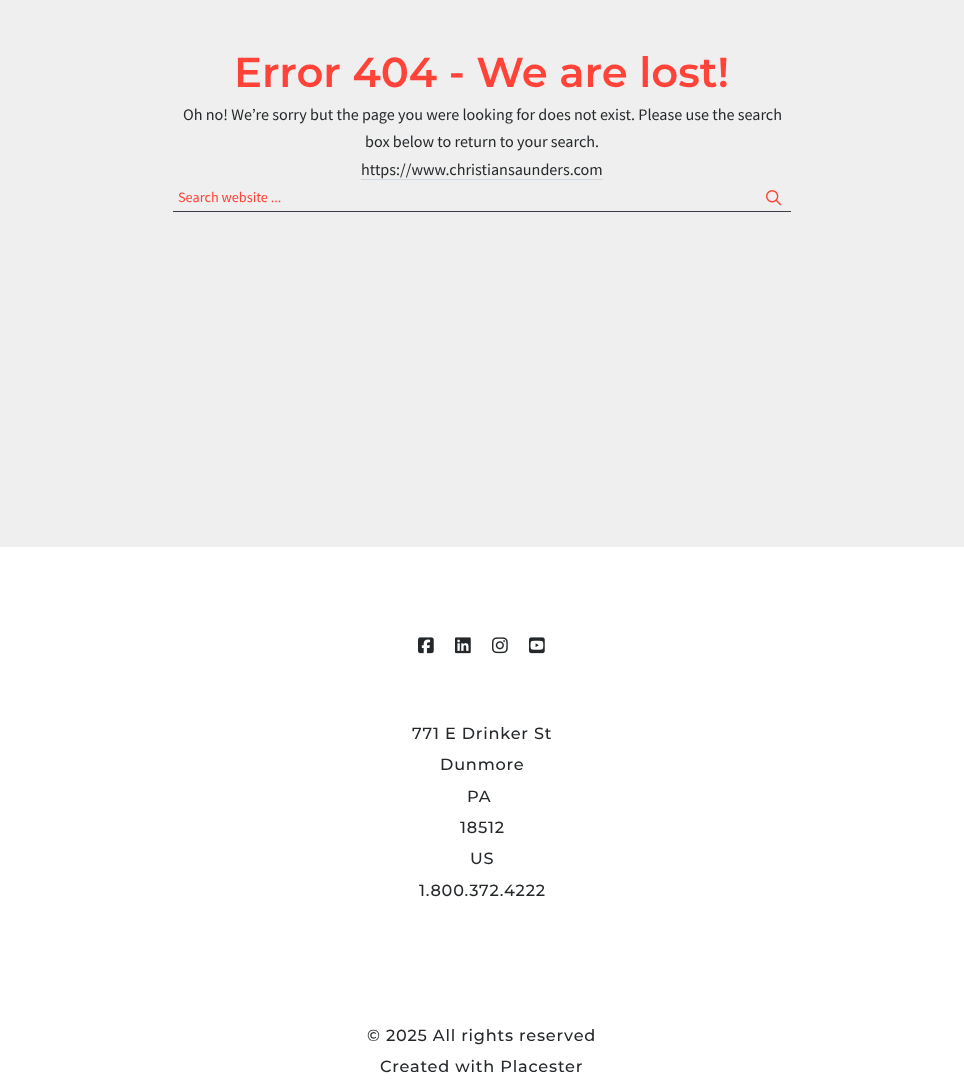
<svg xmlns="http://www.w3.org/2000/svg" width="964" height="1092" viewBox="0 0 964 1092">
  <rect width="100%" height="100%" fill="#fff"/>
  <path d="M0 0h964v547H0z" fill="#efefef"/>
  <path d="M361 179h242v1H361z" fill="#d0d8dd"/>
  <path d="M173 211h618v1H173z" fill="#3c3c44"/>
  <image x="766" y="190" width="16" height="16" href="img/1.png"/>
  <image x="418" y="637" width="16" height="17" href="img/2.png"/>
  <image x="455" y="637" width="16" height="17" href="img/3.png"/>
  <image x="492" y="637" width="16" height="17" href="img/4.png"/>
  <image x="529" y="637" width="16" height="17" href="img/5.png"/>
  <text x="234" y="87" font-family="Montserrat" font-size="41.75" font-weight="600" fill="#ff4338">Error 404 - We are lost!</text>
  <g font-family="Source Sans Pro" font-size="16.15" fill="#25282a">
    <text x="183" y="120">Oh no! We’re sorry but the page you were looking for does not exist. Please use the search</text>
    <text x="365" y="147">box below to return to your search.</text>
    <text x="361" y="175">https://www.christiansaunders.com</text>
  </g>
  <text x="178" y="202" font-family="Source Sans Pro" font-size="14.25" fill="#ff4338">Search website ...</text>
  <g font-family="Montserrat" font-size="16.15" font-weight="500" letter-spacing="0.8" fill="#25282a">
    <text x="412" y="739">771 E Drinker St</text>
    <text x="440" y="770">Dunmore</text>
    <text x="467" y="802">PA</text>
    <text x="460" y="833">18512</text>
    <text x="470" y="864">US</text>
    <text x="419" y="896">1.800.372.4222</text>
    <text x="367" y="1041">© 2025 All rights reserved</text>
    <text x="380" y="1072">Created with Placester</text>
  </g>
</svg>
